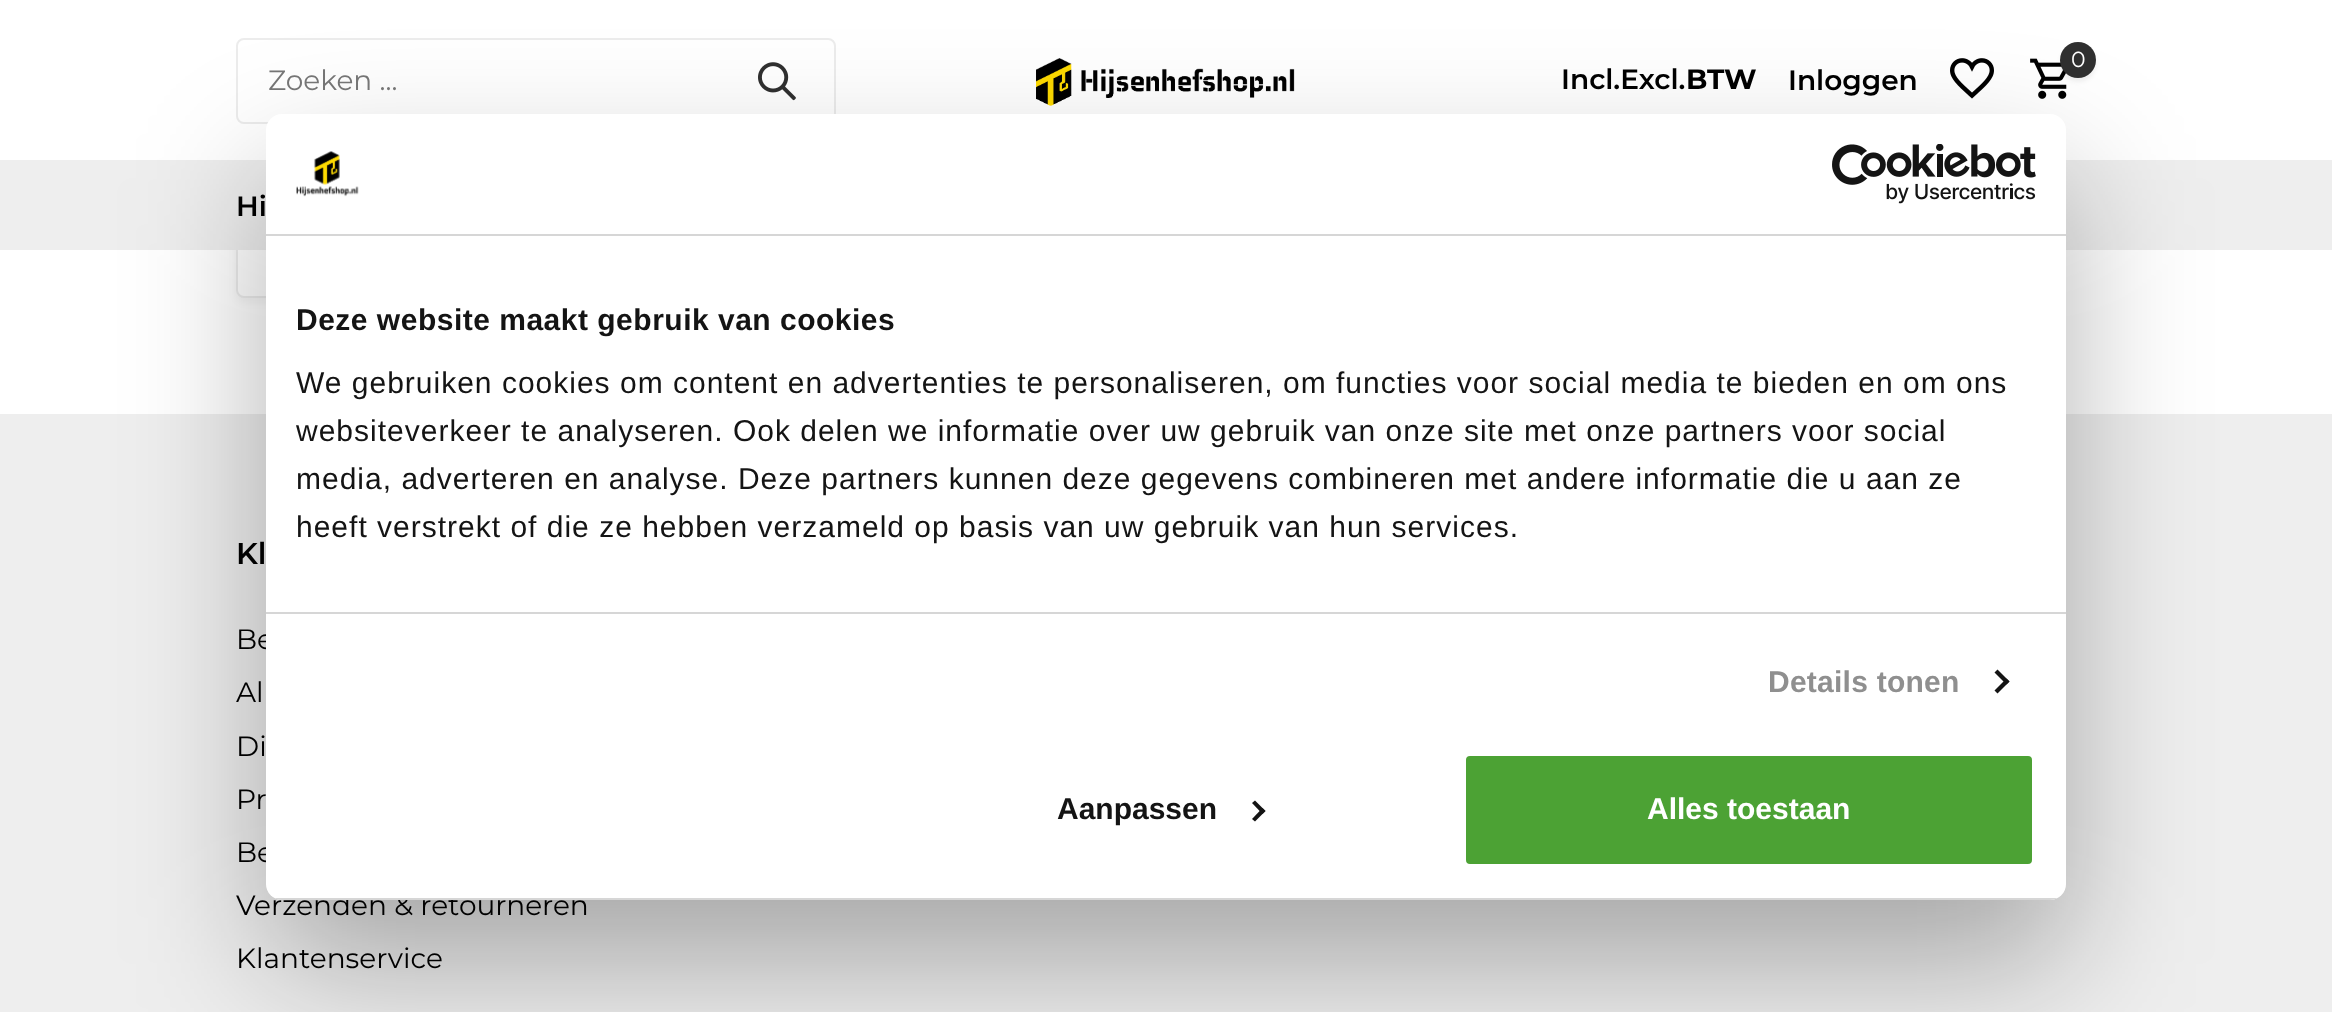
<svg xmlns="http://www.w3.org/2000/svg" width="2332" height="1012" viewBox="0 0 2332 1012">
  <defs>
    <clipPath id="clip1"><rect x="266" y="114" width="1800" height="786" rx="16"/></clipPath>
  </defs>
  <rect width="100%" height="100%" fill="#fff"/>
  <rect x="237" y="39" width="598" height="84" rx="7" fill="none" stroke="#ececec" stroke-width="2"/>
  <image x="758" y="62" width="38" height="39" href="img/1.png"/>
  <image x="1036" y="58" width="259" height="48" href="img/2.png"/>
  <image x="1950" y="58" width="44" height="41" href="img/3.png"/>
  <image x="2030" y="58" width="37" height="41" href="img/4.png"/>
  <rect x="2060" y="46" width="36" height="36" rx="18" fill="#0000000f" filter="blur(2px)"/>
  <circle cx="2078" cy="60" r="18" fill="#303030"/>
  <rect x="236" y="222" width="150" height="80" rx="8" fill="#0000000a" filter="blur(4px)"/>
  <rect x="237" y="219" width="148" height="78" rx="7" fill="#fff" stroke="#ececec" stroke-width="2"/>
  <path d="M0 160h2332v90H0z" fill="#eee"/>
  <path d="M0 414h2332v598H0z" fill="#eee"/>
  <rect x="266" y="178" width="1800" height="786" rx="16" fill="#0000004d" filter="blur(68px)"/>
  <text x="268" y="90" font-family="Montserrat" font-size="28" fill="#757575">Zoeken ...</text>
  <text x="1561" y="89" font-family="Montserrat" font-size="28" font-weight="600" fill="#000">Incl.Excl.</text>
  <text x="1686" y="89" font-family="Montserrat" font-size="28" font-weight="bold" fill="#000">BTW</text>
  <text x="1788" y="90" font-family="Montserrat" font-size="28" font-weight="600" fill="#000">Inloggen</text>
  <text x="2071" y="67" font-family="Montserrat" font-size="22" fill="#fff">0</text>
  <text x="236" y="216" font-family="Montserrat" font-size="28" font-weight="600" fill="#000">Hi</text>
  <text x="236" y="564" font-family="Montserrat" font-size="30" font-weight="600" fill="#000">Kl</text>
  <g font-family="Montserrat" font-size="28" fill="#000">
    <text x="236" y="649">Be</text>
    <text x="236" y="702">Al</text>
    <text x="236" y="756">Di</text>
    <text x="236" y="809">Pr</text>
    <text x="236" y="862">Be</text>
    <text x="236" y="915">Verzenden &amp; retourneren</text>
  </g>
  <rect x="266" y="114" width="1800" height="786" rx="16" fill="#fff"/>
  <path d="M1255 800.5L1265.5 811L1262.5 814L1252 803Z" fill="#141414"/>
  <path d="M1262.5 808L1265.5 811L1255 821.5L1252 819Z" fill="#141414"/>
  <rect x="1464" y="754" width="570" height="112" rx="6" fill="#4ca234" stroke="#fff" stroke-width="4"/>
  <text x="1647" y="819" font-family="Liberation Sans" font-size="30" font-weight="bold" fill="#fff">Alles toestaan</text>
  <text x="1057" y="819" font-family="Liberation Sans" font-size="30" font-weight="bold" fill="#141414">Aanpassen</text>
  <g clip-path="url(#clip1)">
    <path d="M266 898h1800v2H266z" fill="#d6d6d6"/>
  </g>
  <path d="M1997.5 669.5L2009.5 681.5L2006.5 684.5L1994.5 672.5Z" fill="#141414"/>
  <path d="M2006.5 678.5L2009.5 681.5L1997.5 693.5L1994.5 690.5Z" fill="#141414"/>
  <g font-family="Liberation Sans" font-size="30" letter-spacing="1" fill="#141414">
    <text x="296" y="537">heeft verstrekt of die ze hebben verzameld op basis van uw gebruik van hun services.</text>
    <text x="296" y="489">media, adverteren en analyse. Deze partners kunnen deze gegevens combineren met andere informatie die u aan ze</text>
    <text x="296" y="441">websiteverkeer te analyseren. Ook delen we informatie over uw gebruik van onze site met onze partners voor social</text>
    <text x="296" y="393">We gebruiken cookies om content en advertenties te personaliseren, om functies voor social media te bieden en om ons</text>
  </g>
  <text x="296" y="330" font-family="Liberation Sans" font-size="30" font-weight="bold" letter-spacing="0.5" fill="#141414">Deze website maakt gebruik van cookies</text>
  <path d="M266 612h1800v2H266z" fill="#d6d6d6"/>
  <text x="1768" y="692" font-family="Liberation Sans" font-size="30" font-weight="bold" letter-spacing="0.25" fill="#8f8f8f">Details tonen</text>
  <image x="1832" y="144" width="204" height="60" href="img/6.png"/>
  <image x="296" y="151" width="63" height="46" href="img/5.png"/>
  <path d="M266 234h1800v2H266z" fill="#d6d6d6"/>
  <text x="236" y="968" font-family="Montserrat" font-size="28" fill="#000">Klantenservice</text>
</svg>
